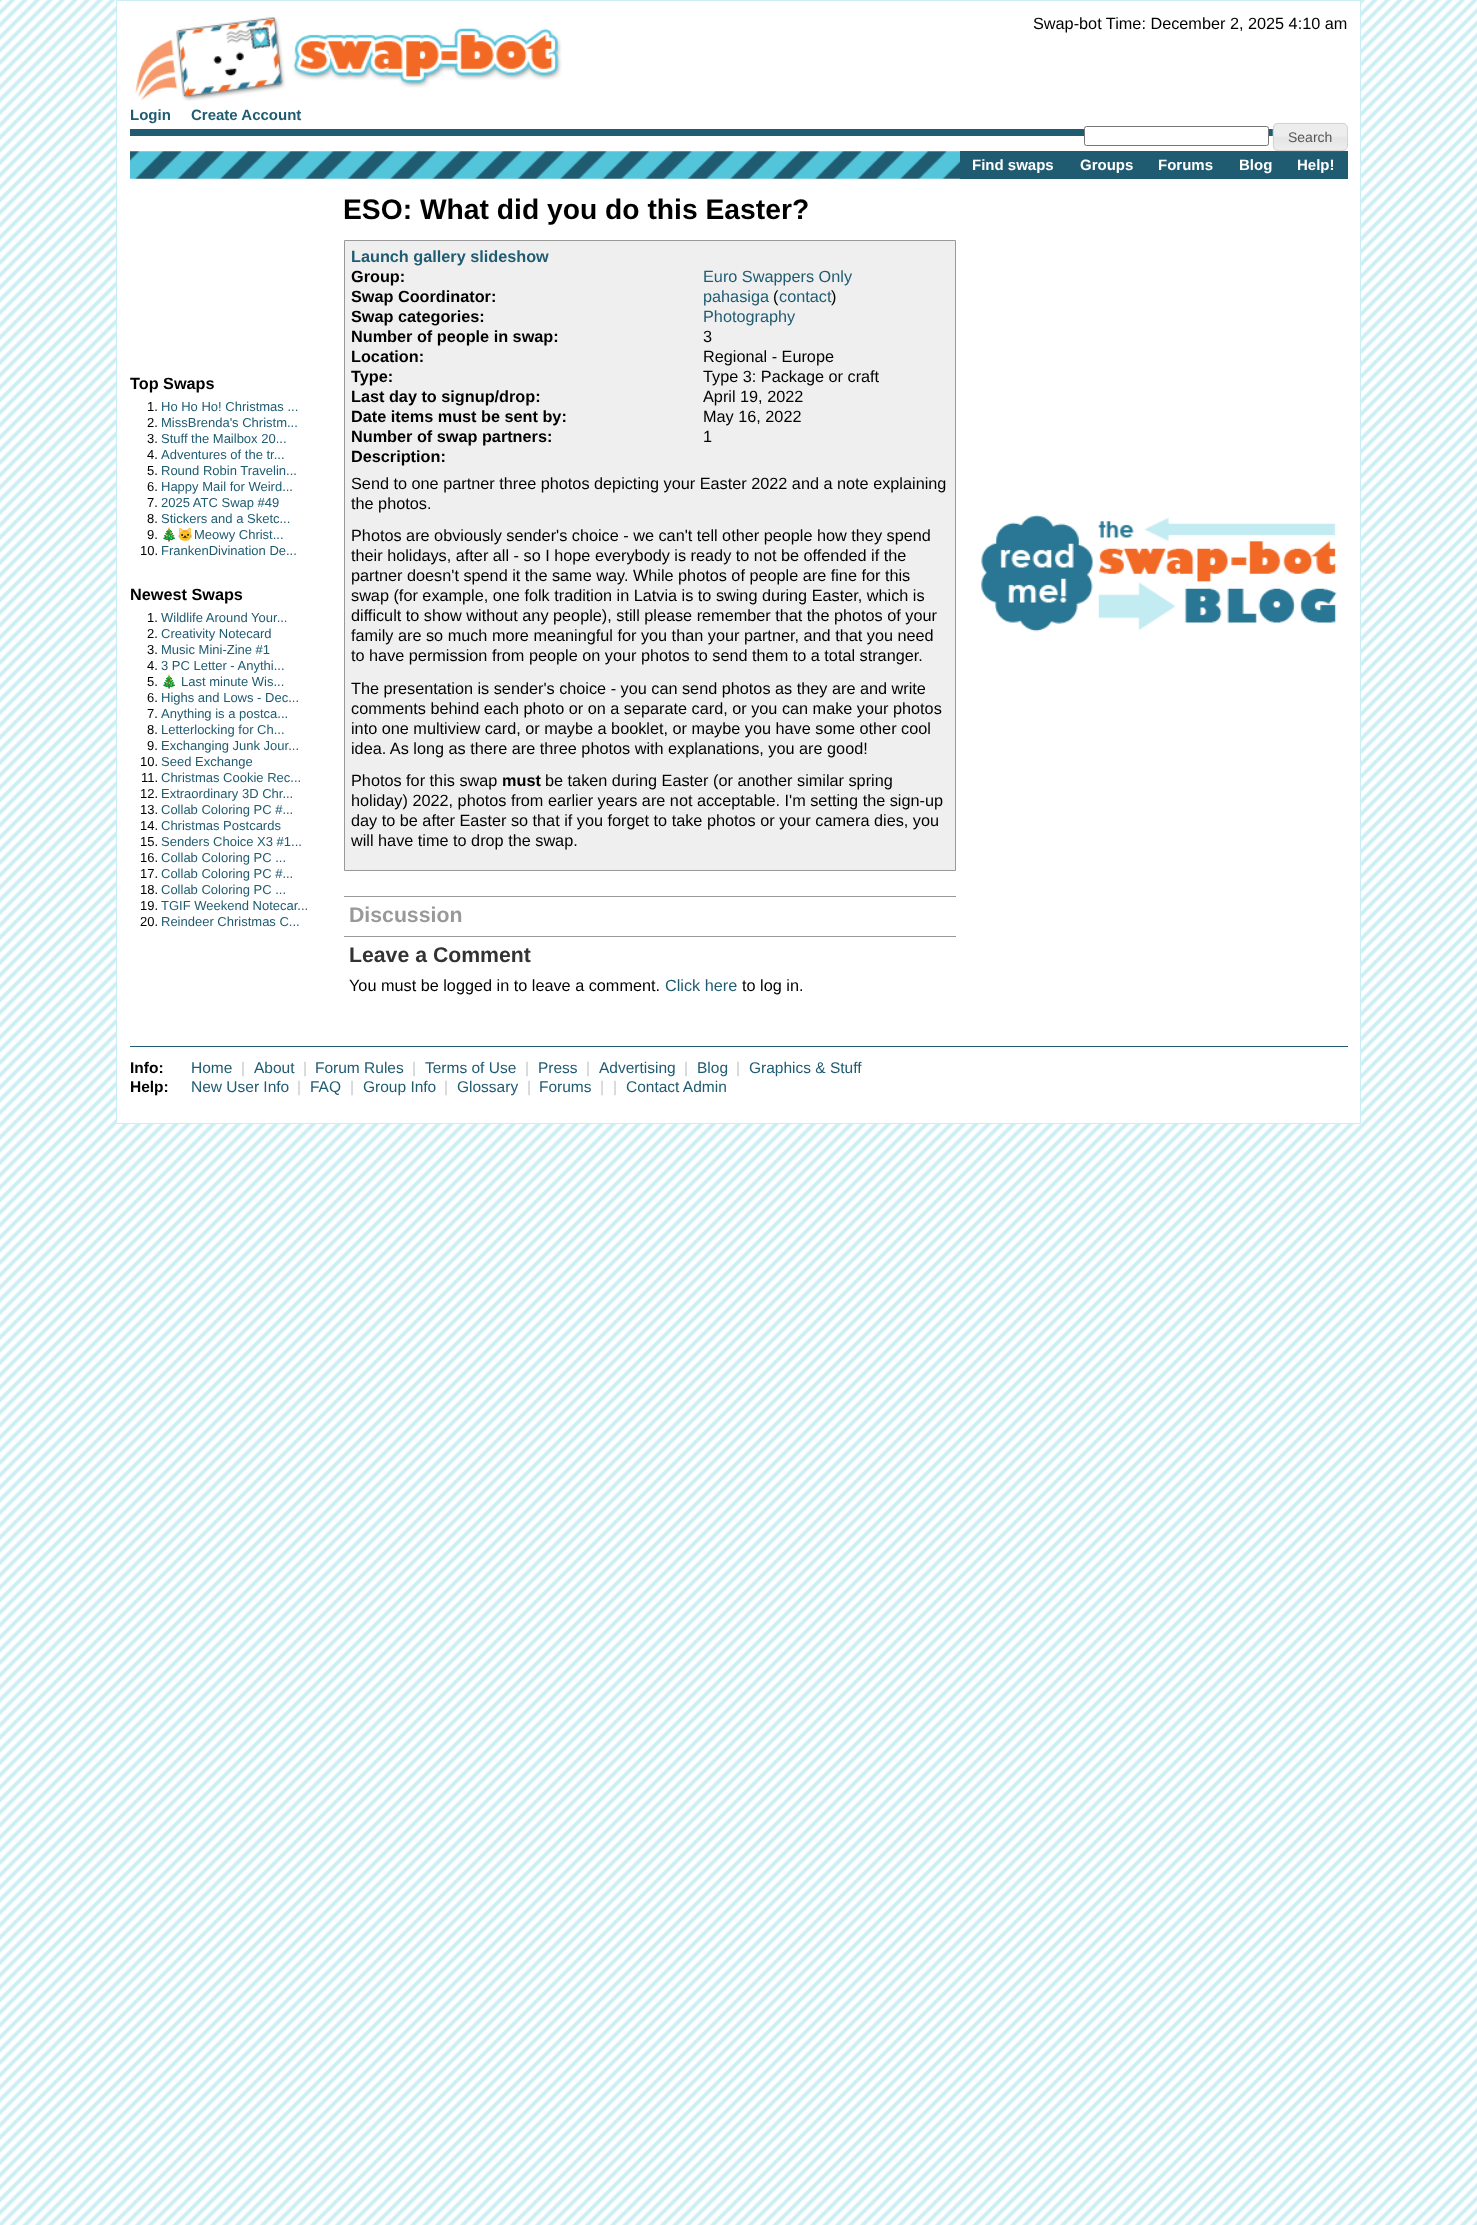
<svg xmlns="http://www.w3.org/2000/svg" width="1477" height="2225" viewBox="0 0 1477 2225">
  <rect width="100%" height="100%" fill="#fff"/>
  <image x="0" y="0" width="1477" height="2225" href="img/1.png"/>
  <path d="M116.5 0.5h1244v1123H116.5z" fill="#fff" stroke="#cbeef4"/>
  <image x="135" y="17" width="427" height="84" href="img/2.png"/>
  <path d="M130 129h1143v7H130z" fill="#1f5b71"/>
  <rect x="1084.5" y="126.5" width="184" height="19" rx="2" fill="#fff" stroke="#767676"/>
  <path d="M960 151h388v28H960z" fill="#1f5b71"/>
  <image x="1272" y="122" width="75" height="30" href="img/3.png"/>
  <rect x="1273.5" y="123.5" width="74" height="27" rx="4.5" fill="none" stroke="#d3d3d3"/>
  <image x="130" y="151" width="830" height="28" href="img/4.png"/>
  <path d="M344.5 240.5h611v630H344.5z" fill="#efefef" stroke="#999"/>
  <path d="M344 896h612v1H344z" fill="#999"/>
  <path d="M344 936h612v1H344z" fill="#999"/>
  <image x="981" y="515" width="356" height="117" href="img/5.png"/>
  <path d="M130 1046h1218v1H130z" fill="#1f5b71"/>
  <text x="1033" y="29" font-family="Liberation Sans" font-size="16.25" fill="#000">Swap-bot Time: December 2, 2025 4:10 am</text>
  <g font-family="Liberation Sans" font-size="15" font-weight="bold" fill="#1f5b71">
    <text x="130" y="120">Login</text>
    <text x="191" y="120">Create Account</text>
  </g>
  <text x="1288" y="142" font-family="Liberation Sans" font-size="14" fill="#555">Search</text>
  <g font-family="Liberation Sans" font-size="15" font-weight="bold" fill="#fff">
    <text x="972" y="170">Find swaps</text>
    <text x="1080" y="170">Groups</text>
    <text x="1158" y="170">Forums</text>
    <text x="1239" y="170">Blog</text>
    <text x="1297" y="170">Help!</text>
  </g>
  <text x="130" y="389" font-family="Liberation Sans" font-size="16.25" font-weight="bold" fill="#000">Top Swaps</text>
  <text x="147" y="411" font-family="Liberation Sans" font-size="13" fill="#000">1.</text>
  <text x="161" y="411" font-family="Liberation Sans" font-size="13" fill="#1f5b71">Ho Ho Ho! Christmas ...</text>
  <text x="147" y="427" font-family="Liberation Sans" font-size="13" fill="#000">2.</text>
  <text x="161" y="427" font-family="Liberation Sans" font-size="13" fill="#1f5b71">MissBrenda's Christm...</text>
  <text x="147" y="443" font-family="Liberation Sans" font-size="13" fill="#000">3.</text>
  <text x="161" y="443" font-family="Liberation Sans" font-size="13" fill="#1f5b71">Stuff the Mailbox 20...</text>
  <text x="147" y="459" font-family="Liberation Sans" font-size="13" fill="#000">4.</text>
  <text x="161" y="459" font-family="Liberation Sans" font-size="13" fill="#1f5b71">Adventures of the tr...</text>
  <text x="147" y="475" font-family="Liberation Sans" font-size="13" fill="#000">5.</text>
  <text x="161" y="475" font-family="Liberation Sans" font-size="13" fill="#1f5b71">Round Robin Travelin...</text>
  <text x="147" y="491" font-family="Liberation Sans" font-size="13" fill="#000">6.</text>
  <text x="161" y="491" font-family="Liberation Sans" font-size="13" fill="#1f5b71">Happy Mail for Weird...</text>
  <text x="147" y="507" font-family="Liberation Sans" font-size="13" fill="#000">7.</text>
  <text x="161" y="507" font-family="Liberation Sans" font-size="13" fill="#1f5b71">2025 ATC Swap #49</text>
  <text x="147" y="523" font-family="Liberation Sans" font-size="13" fill="#000">8.</text>
  <text x="161" y="523" font-family="Liberation Sans" font-size="13" fill="#1f5b71">Stickers and a Sketc...</text>
  <text x="147" y="539" font-family="Liberation Sans" font-size="13" fill="#000">9.</text>
  <text x="161" y="539" font-family="Noto Color Emoji" font-size="13" fill="#1f5b71">🎄🐱</text>
  <text x="194" y="539" font-family="Liberation Sans" font-size="13" fill="#1f5b71">Meowy Christ...</text>
  <text x="140" y="555" font-family="Liberation Sans" font-size="13" fill="#000">10.</text>
  <text x="161" y="555" font-family="Liberation Sans" font-size="13" fill="#1f5b71">FrankenDivination De...</text>
  <text x="130" y="600" font-family="Liberation Sans" font-size="16.25" font-weight="bold" fill="#000">Newest Swaps</text>
  <text x="147" y="622" font-family="Liberation Sans" font-size="13" fill="#000">1.</text>
  <text x="161" y="622" font-family="Liberation Sans" font-size="13" fill="#1f5b71">Wildlife Around Your...</text>
  <text x="147" y="638" font-family="Liberation Sans" font-size="13" fill="#000">2.</text>
  <text x="161" y="638" font-family="Liberation Sans" font-size="13" fill="#1f5b71">Creativity Notecard</text>
  <text x="147" y="654" font-family="Liberation Sans" font-size="13" fill="#000">3.</text>
  <text x="161" y="654" font-family="Liberation Sans" font-size="13" fill="#1f5b71">Music Mini-Zine #1</text>
  <text x="147" y="670" font-family="Liberation Sans" font-size="13" fill="#000">4.</text>
  <text x="161" y="670" font-family="Liberation Sans" font-size="13" fill="#1f5b71">3 PC Letter - Anythi...</text>
  <text x="147" y="686" font-family="Liberation Sans" font-size="13" fill="#000">5.</text>
  <text x="161" y="686" font-family="Noto Color Emoji" font-size="13" fill="#1f5b71">🎄</text>
  <text x="181" y="686" font-family="Liberation Sans" font-size="13" fill="#1f5b71">Last minute Wis...</text>
  <text x="147" y="702" font-family="Liberation Sans" font-size="13" fill="#000">6.</text>
  <text x="161" y="702" font-family="Liberation Sans" font-size="13" fill="#1f5b71">Highs and Lows - Dec...</text>
  <text x="147" y="718" font-family="Liberation Sans" font-size="13" fill="#000">7.</text>
  <text x="161" y="718" font-family="Liberation Sans" font-size="13" fill="#1f5b71">Anything is a postca...</text>
  <text x="147" y="734" font-family="Liberation Sans" font-size="13" fill="#000">8.</text>
  <text x="161" y="734" font-family="Liberation Sans" font-size="13" fill="#1f5b71">Letterlocking for Ch...</text>
  <text x="147" y="750" font-family="Liberation Sans" font-size="13" fill="#000">9.</text>
  <text x="161" y="750" font-family="Liberation Sans" font-size="13" fill="#1f5b71">Exchanging Junk Jour...</text>
  <text x="140" y="766" font-family="Liberation Sans" font-size="13" fill="#000">10.</text>
  <text x="161" y="766" font-family="Liberation Sans" font-size="13" fill="#1f5b71">Seed Exchange</text>
  <text x="141" y="782" font-family="Liberation Sans" font-size="13" fill="#000">11.</text>
  <text x="161" y="782" font-family="Liberation Sans" font-size="13" fill="#1f5b71">Christmas Cookie Rec...</text>
  <text x="140" y="798" font-family="Liberation Sans" font-size="13" fill="#000">12.</text>
  <text x="161" y="798" font-family="Liberation Sans" font-size="13" fill="#1f5b71">Extraordinary 3D Chr...</text>
  <text x="140" y="814" font-family="Liberation Sans" font-size="13" fill="#000">13.</text>
  <text x="161" y="814" font-family="Liberation Sans" font-size="13" fill="#1f5b71">Collab Coloring PC #...</text>
  <text x="140" y="830" font-family="Liberation Sans" font-size="13" fill="#000">14.</text>
  <text x="161" y="830" font-family="Liberation Sans" font-size="13" fill="#1f5b71">Christmas Postcards</text>
  <text x="140" y="846" font-family="Liberation Sans" font-size="13" fill="#000">15.</text>
  <text x="161" y="846" font-family="Liberation Sans" font-size="13" fill="#1f5b71">Senders Choice X3 #1...</text>
  <text x="140" y="862" font-family="Liberation Sans" font-size="13" fill="#000">16.</text>
  <text x="161" y="862" font-family="Liberation Sans" font-size="13" fill="#1f5b71">Collab Coloring PC ...</text>
  <text x="140" y="878" font-family="Liberation Sans" font-size="13" fill="#000">17.</text>
  <text x="161" y="878" font-family="Liberation Sans" font-size="13" fill="#1f5b71">Collab Coloring PC #...</text>
  <text x="140" y="894" font-family="Liberation Sans" font-size="13" fill="#000">18.</text>
  <text x="161" y="894" font-family="Liberation Sans" font-size="13" fill="#1f5b71">Collab Coloring PC ...</text>
  <text x="140" y="910" font-family="Liberation Sans" font-size="13" fill="#000">19.</text>
  <text x="161" y="910" font-family="Liberation Sans" font-size="13" fill="#1f5b71">TGIF Weekend Notecar...</text>
  <text x="140" y="926" font-family="Liberation Sans" font-size="13" fill="#000">20.</text>
  <text x="161" y="926" font-family="Liberation Sans" font-size="13" fill="#1f5b71">Reindeer Christmas C...</text>
  <text x="343" y="219" font-family="Liberation Sans" font-size="28.25" font-weight="bold" fill="#000">ESO: What did you do this Easter?</text>
  <text x="351" y="262" font-family="Liberation Sans" font-size="16.25" font-weight="bold" fill="#1f5b71">Launch gallery slideshow</text>
  <text x="351" y="282" font-family="Liberation Sans" font-size="16.25" font-weight="bold" fill="#000">Group:</text>
  <text x="703" y="282" font-family="Liberation Sans" font-size="16.25" fill="#1f5b71">Euro Swappers Only</text>
  <text x="351" y="302" font-family="Liberation Sans" font-size="16.25" font-weight="bold" fill="#000">Swap Coordinator:</text>
  <text x="703" y="302" font-family="Liberation Sans" font-size="16.25" fill="#1f5b71">pahasiga</text>
  <text x="773" y="302" font-family="Liberation Sans" font-size="16.25" fill="#000">(</text>
  <text x="779" y="302" font-family="Liberation Sans" font-size="16.25" fill="#1f5b71">contact</text>
  <text x="831" y="302" font-family="Liberation Sans" font-size="16.25" fill="#000">)</text>
  <text x="351" y="322" font-family="Liberation Sans" font-size="16.25" font-weight="bold" fill="#000">Swap categories:</text>
  <text x="703" y="322" font-family="Liberation Sans" font-size="16.25" fill="#1f5b71">Photography</text>
  <text x="351" y="342" font-family="Liberation Sans" font-size="16.25" font-weight="bold" fill="#000">Number of people in swap:</text>
  <text x="703" y="342" font-family="Liberation Sans" font-size="16.25" fill="#000">3</text>
  <text x="351" y="362" font-family="Liberation Sans" font-size="16.25" font-weight="bold" fill="#000">Location:</text>
  <text x="703" y="362" font-family="Liberation Sans" font-size="16.25" fill="#000">Regional - Europe</text>
  <text x="351" y="382" font-family="Liberation Sans" font-size="16.25" font-weight="bold" fill="#000">Type:</text>
  <text x="703" y="382" font-family="Liberation Sans" font-size="16.25" fill="#000">Type 3: Package or craft</text>
  <text x="351" y="402" font-family="Liberation Sans" font-size="16.25" font-weight="bold" fill="#000">Last day to signup/drop:</text>
  <text x="703" y="402" font-family="Liberation Sans" font-size="16.25" fill="#000">April 19, 2022</text>
  <text x="351" y="422" font-family="Liberation Sans" font-size="16.25" font-weight="bold" fill="#000">Date items must be sent by:</text>
  <text x="703" y="422" font-family="Liberation Sans" font-size="16.25" fill="#000">May 16, 2022</text>
  <text x="351" y="442" font-family="Liberation Sans" font-size="16.25" font-weight="bold" fill="#000">Number of swap partners:</text>
  <text x="703" y="442" font-family="Liberation Sans" font-size="16.25" fill="#000">1</text>
  <text x="351" y="462" font-family="Liberation Sans" font-size="16.25" font-weight="bold" fill="#000">Description:</text>
  <g font-family="Liberation Sans" font-size="16.25" fill="#000">
    <text x="351" y="489">Send to one partner three photos depicting your Easter 2022 and a note explaining</text>
    <text x="351" y="509">the photos.</text>
    <text x="351" y="541">Photos are obviously sender's choice - we can't tell other people how they spend</text>
    <text x="351" y="561">their holidays, after all - so I hope everybody is ready to not be offended if the</text>
    <text x="351" y="581">partner doesn't spend it the same way. While photos of people are fine for this</text>
    <text x="351" y="601">swap (for example, one folk tradition in Latvia is to swing during Easter, which is</text>
    <text x="351" y="621">difficult to show without any people), still please remember that the photos of your</text>
    <text x="351" y="641">family are so much more meaningful for you than your partner, and that you need</text>
    <text x="351" y="661">to have permission from people on your photos to send them to a total stranger.</text>
    <text x="351" y="694">The presentation is sender's choice - you can send photos as they are and write</text>
    <text x="351" y="714">comments behind each photo or on a separate card, or you can make your photos</text>
    <text x="351" y="734">into one multiview card, or maybe a booklet, or maybe you have some other cool</text>
    <text x="351" y="754">idea. As long as there are three photos with explanations, you are good!</text>
    <text x="351" y="786">Photos for this swap</text>
  </g>
  <text x="502" y="786" font-family="Liberation Sans" font-size="16.25" font-weight="bold" fill="#000">must</text>
  <g font-family="Liberation Sans" font-size="16.25" fill="#000">
    <text x="545" y="786">be taken during Easter (or another similar spring</text>
    <text x="351" y="806">holiday) 2022, photos from earlier years are not acceptable. I'm setting the sign-up</text>
    <text x="351" y="826">day to be after Easter so that if you forget to take photos or your camera dies, you</text>
    <text x="351" y="846">will have time to drop the swap.</text>
  </g>
  <text x="349" y="922" font-family="Liberation Sans" font-size="21.25" font-weight="bold" fill="#999">Discussion</text>
  <text x="349" y="962" font-family="Liberation Sans" font-size="21.25" font-weight="bold" fill="#333">Leave a Comment</text>
  <text x="349" y="991" font-family="Liberation Sans" font-size="16.25" fill="#000">You must be logged in to leave a comment.</text>
  <text x="665" y="991" font-family="Liberation Sans" font-size="16.25" fill="#1f5b71">Click here</text>
  <text x="742" y="991" font-family="Liberation Sans" font-size="16.25" fill="#000">to log in.</text>
  <text x="130" y="1073" font-family="Liberation Sans" font-size="15.5" font-weight="bold" fill="#000">Info:</text>
  <text x="191" y="1073" font-family="Liberation Sans" font-size="15.5" fill="#1f5b71">Home</text>
  <text x="241" y="1073" font-family="Liberation Sans" font-size="15.5" fill="#c9c9c9">|</text>
  <text x="254" y="1073" font-family="Liberation Sans" font-size="15.5" fill="#1f5b71">About</text>
  <text x="303" y="1073" font-family="Liberation Sans" font-size="15.5" fill="#c9c9c9">|</text>
  <text x="315" y="1073" font-family="Liberation Sans" font-size="15.5" fill="#1f5b71">Forum Rules</text>
  <text x="412" y="1073" font-family="Liberation Sans" font-size="15.5" fill="#c9c9c9">|</text>
  <text x="425" y="1073" font-family="Liberation Sans" font-size="15.5" fill="#1f5b71">Terms of Use</text>
  <text x="525" y="1073" font-family="Liberation Sans" font-size="15.5" fill="#c9c9c9">|</text>
  <text x="538" y="1073" font-family="Liberation Sans" font-size="15.5" fill="#1f5b71">Press</text>
  <text x="586" y="1073" font-family="Liberation Sans" font-size="15.5" fill="#c9c9c9">|</text>
  <text x="599" y="1073" font-family="Liberation Sans" font-size="15.5" fill="#1f5b71">Advertising</text>
  <text x="684" y="1073" font-family="Liberation Sans" font-size="15.5" fill="#c9c9c9">|</text>
  <text x="697" y="1073" font-family="Liberation Sans" font-size="15.5" fill="#1f5b71">Blog</text>
  <text x="736" y="1073" font-family="Liberation Sans" font-size="15.5" fill="#c9c9c9">|</text>
  <text x="749" y="1073" font-family="Liberation Sans" font-size="15.5" fill="#1f5b71">Graphics &amp; Stuff</text>
  <text x="130" y="1092" font-family="Liberation Sans" font-size="15.5" font-weight="bold" fill="#000">Help:</text>
  <text x="191" y="1092" font-family="Liberation Sans" font-size="15.5" fill="#1f5b71">New User Info</text>
  <text x="297" y="1092" font-family="Liberation Sans" font-size="15.5" fill="#c9c9c9">|</text>
  <text x="310" y="1092" font-family="Liberation Sans" font-size="15.5" fill="#1f5b71">FAQ</text>
  <text x="350" y="1092" font-family="Liberation Sans" font-size="15.5" fill="#c9c9c9">|</text>
  <text x="363" y="1092" font-family="Liberation Sans" font-size="15.5" fill="#1f5b71">Group Info</text>
  <text x="444" y="1092" font-family="Liberation Sans" font-size="15.5" fill="#c9c9c9">|</text>
  <text x="457" y="1092" font-family="Liberation Sans" font-size="15.5" fill="#1f5b71">Glossary</text>
  <text x="527" y="1092" font-family="Liberation Sans" font-size="15.5" fill="#c9c9c9">|</text>
  <text x="539" y="1092" font-family="Liberation Sans" font-size="15.5" fill="#1f5b71">Forums</text>
  <g font-family="Liberation Sans" font-size="15.5" fill="#c9c9c9">
    <text x="600" y="1092">|</text>
    <text x="613" y="1092">|</text>
  </g>
  <text x="626" y="1092" font-family="Liberation Sans" font-size="15.5" fill="#1f5b71">Contact Admin</text>
</svg>
